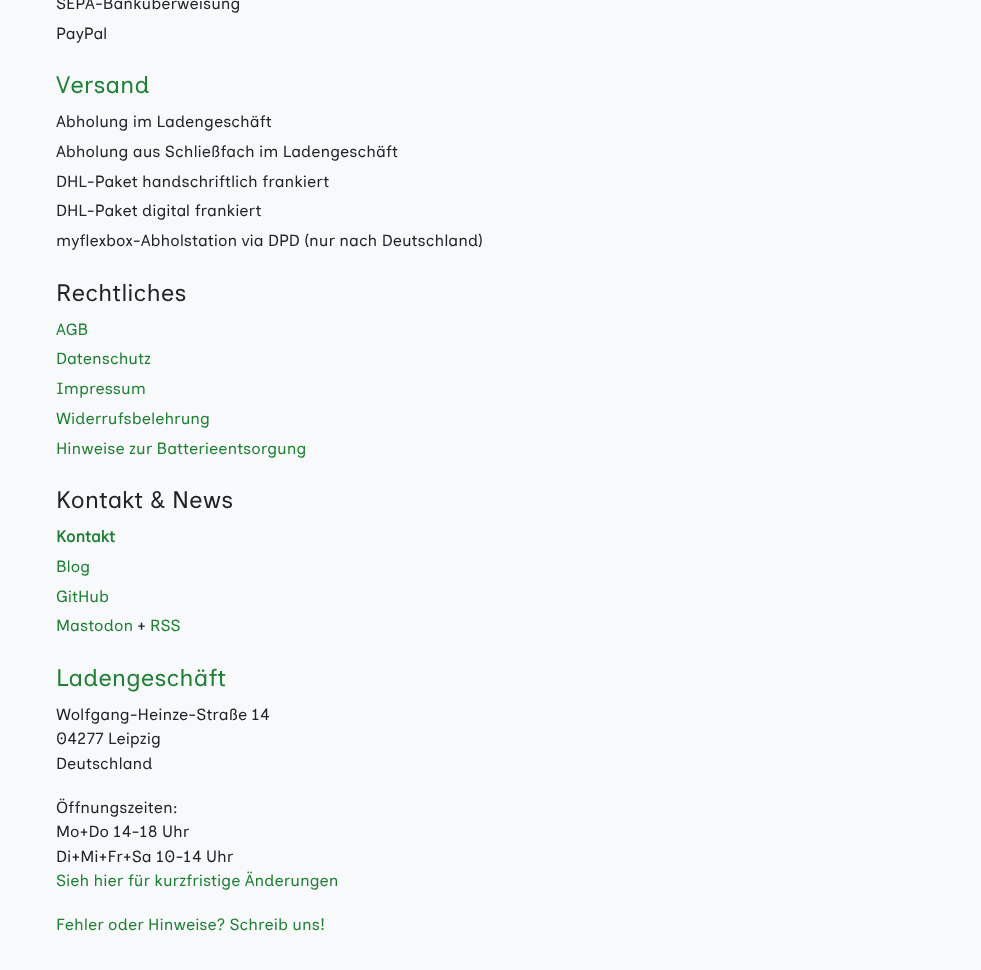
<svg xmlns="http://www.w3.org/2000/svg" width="981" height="970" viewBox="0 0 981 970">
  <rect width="100%" height="100%" fill="#f8f9fa"/>
  <g font-family="Inclusive Sans" font-size="16.25" fill="#212529">
    <text x="56" y="9">SEPA-Banküberweisung</text>
    <text x="56" y="39">PayPal</text>
  </g>
  <text x="56" y="93" font-family="Inclusive Sans" font-size="24" fill="#1f8035">Versand</text>
  <g font-family="Inclusive Sans" font-size="16.25" fill="#212529">
    <text x="56" y="127">Abholung im Ladengeschäft</text>
    <text x="56" y="157">Abholung aus Schließfach im Ladengeschäft</text>
    <text x="56" y="187">DHL-Paket handschriftlich frankiert</text>
    <text x="56" y="216">DHL-Paket digital frankiert</text>
    <text x="56" y="246">myflexbox-Abholstation via DPD (nur nach Deutschland)</text>
  </g>
  <text x="56" y="301" font-family="Inclusive Sans" font-size="24" fill="#212529">Rechtliches</text>
  <g font-family="Inclusive Sans" font-size="16.25" fill="#1f8035">
    <text x="56" y="335">AGB</text>
    <text x="56" y="364">Datenschutz</text>
    <text x="56" y="394">Impressum</text>
    <text x="56" y="424">Widerrufsbelehrung</text>
    <text x="56" y="454">Hinweise zur Batterieentsorgung</text>
  </g>
  <text x="56" y="508" font-family="Inclusive Sans" font-size="24" fill="#212529">Kontakt &amp; News</text>
  <text x="56" y="542" font-family="Inclusive Sans" font-size="16.25" font-weight="bold" fill="#1f8035">Kontakt</text>
  <g font-family="Inclusive Sans" font-size="16.25" fill="#1f8035">
    <text x="56" y="572">Blog</text>
    <text x="56" y="602">GitHub</text>
    <text x="56" y="631">Mastodon</text>
  </g>
  <text x="137" y="631" font-family="Inclusive Sans" font-size="16.25" fill="#212529">+</text>
  <text x="150" y="631" font-family="Inclusive Sans" font-size="16.25" fill="#1f8035">RSS</text>
  <text x="56" y="686" font-family="Inclusive Sans" font-size="24" fill="#1f8035">Ladengeschäft</text>
  <g font-family="Inclusive Sans" font-size="16.25" fill="#212529">
    <text x="56" y="720">Wolfgang-Heinze-Straße 14</text>
    <text x="56" y="744">04277 Leipzig</text>
    <text x="56" y="769">Deutschland</text>
    <text x="56" y="813">Öffnungszeiten:</text>
    <text x="56" y="837">Mo+Do 14-18 Uhr</text>
    <text x="56" y="862">Di+Mi+Fr+Sa 10-14 Uhr</text>
  </g>
  <g font-family="Inclusive Sans" font-size="16.25" fill="#1f8035">
    <text x="56" y="886">Sieh hier für kurzfristige Änderungen</text>
    <text x="56" y="930">Fehler oder Hinweise? Schreib uns!</text>
  </g>
</svg>
